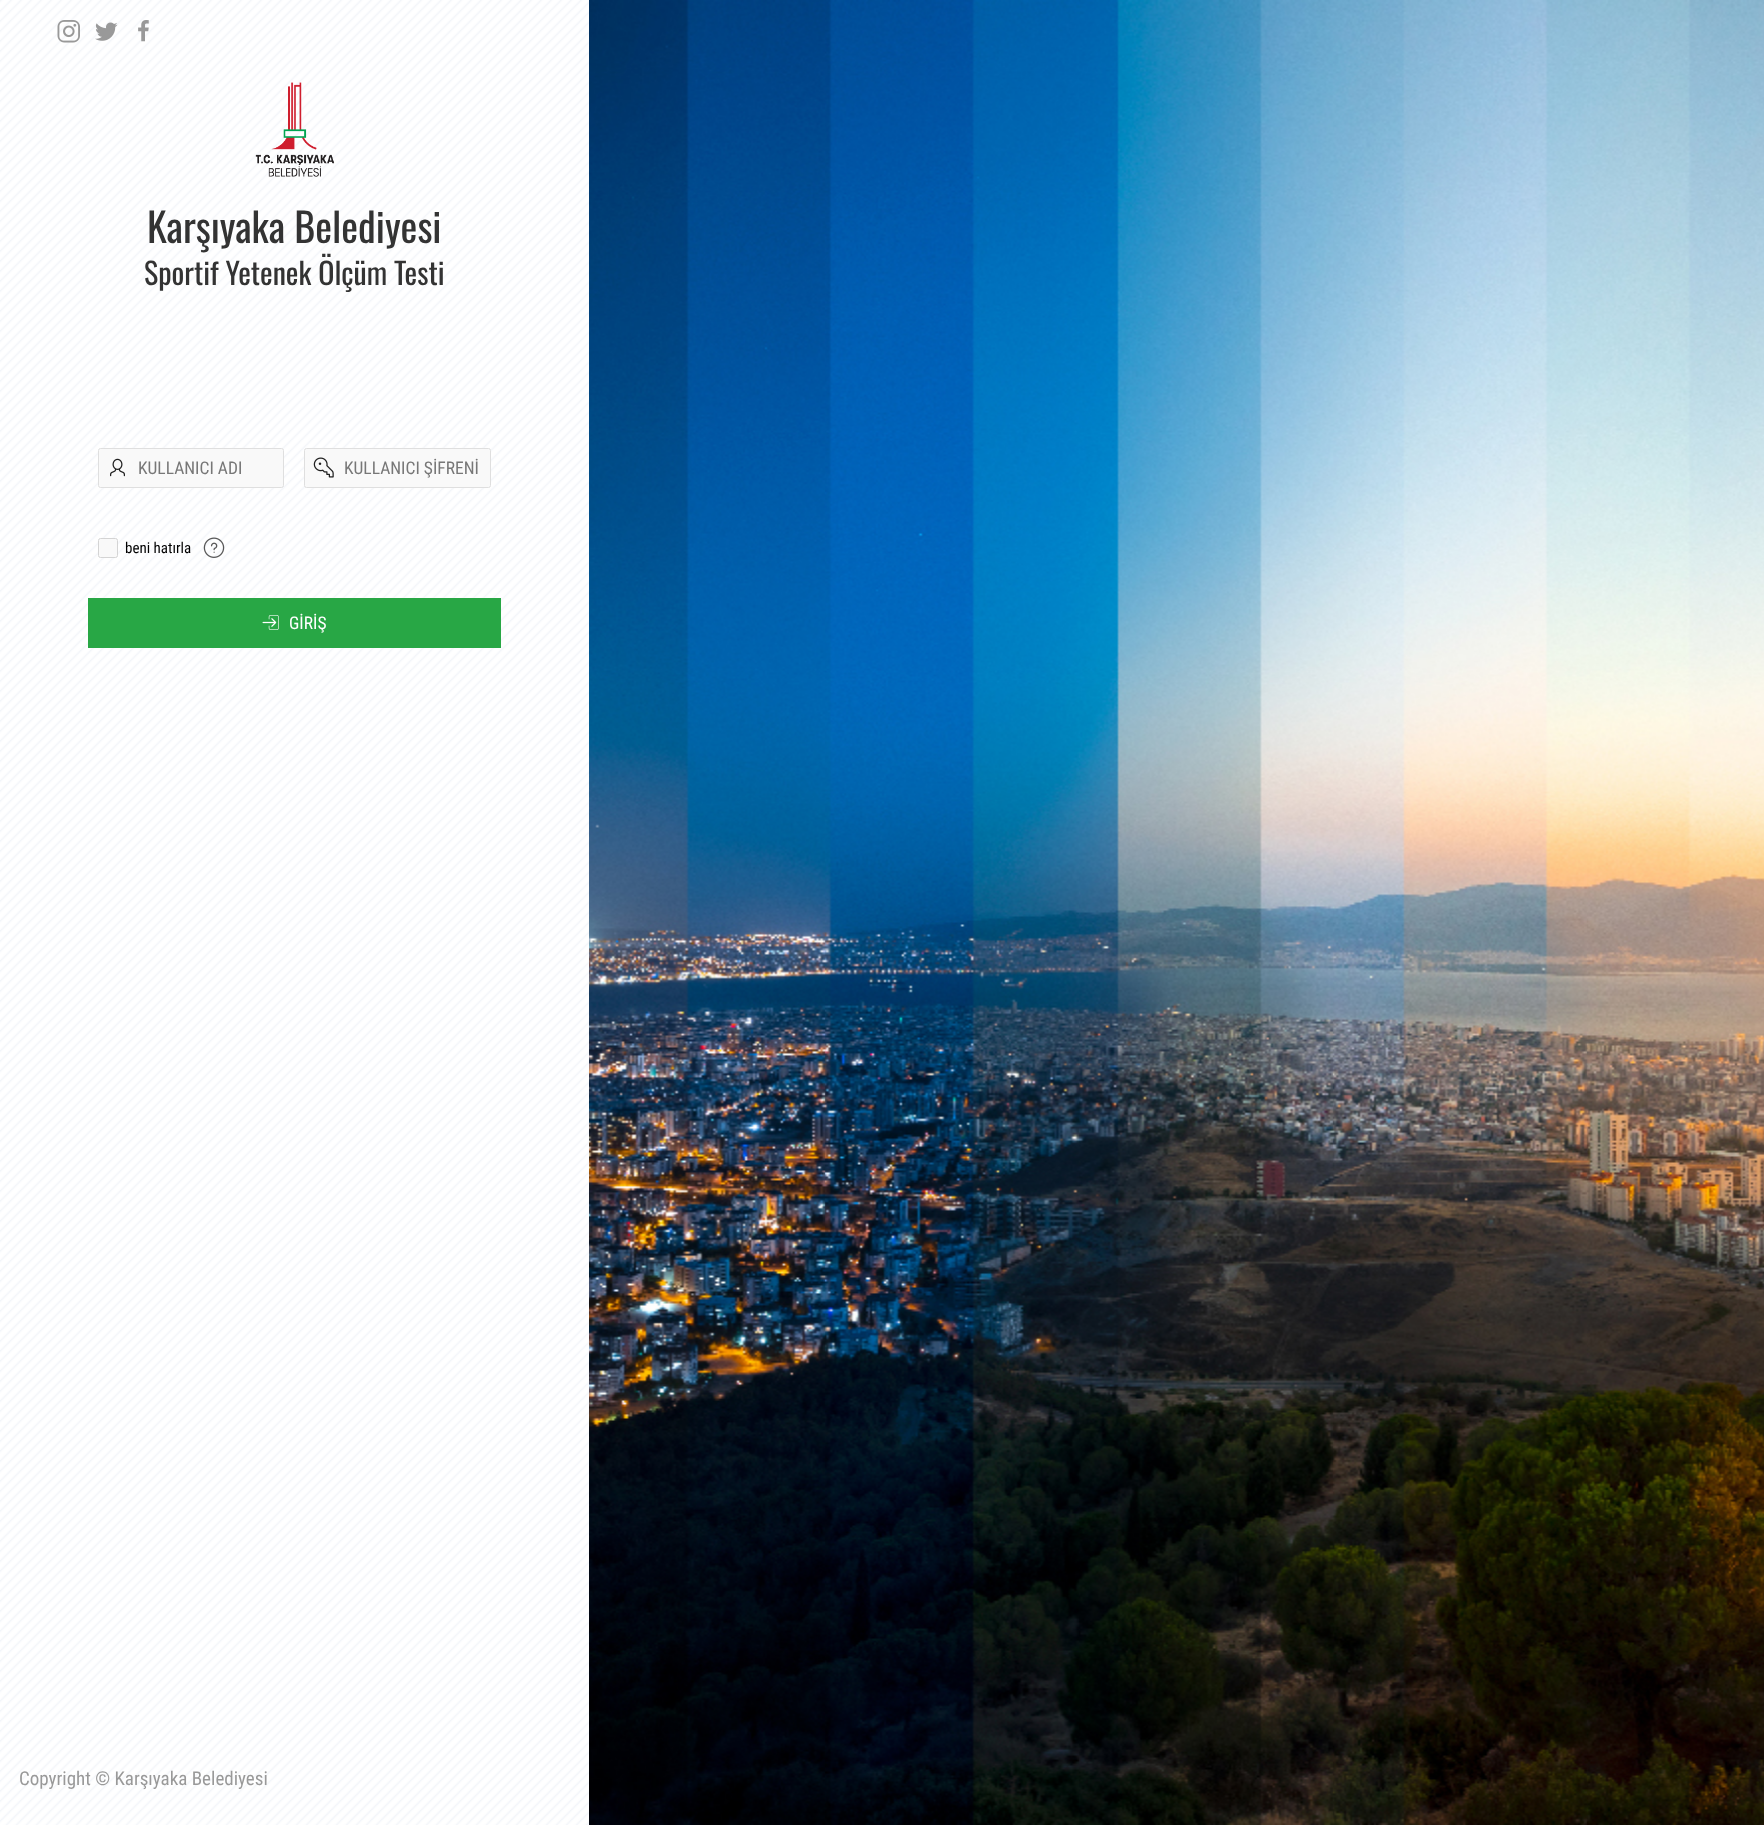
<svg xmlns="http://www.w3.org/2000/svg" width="1764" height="1825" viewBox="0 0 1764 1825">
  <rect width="100%" height="100%" fill="#fff"/>
  <image x="0" y="0" width="589" height="1825" href="img/1.png"/>
  <image x="57" y="20" width="23" height="23" href="img/2.png"/>
  <image x="95" y="22" width="23" height="19" href="img/3.png"/>
  <image x="138" y="20" width="11" height="22" href="img/4.png"/>
  <image x="255" y="82" width="80" height="95" href="img/5.png"/>
  <rect x="98.5" y="448.5" width="185" height="39" rx="2" fill="#f9f9f9" stroke="#dfdfdf"/>
  <image x="110" y="458" width="15" height="19" href="img/6.png"/>
  <rect x="304.5" y="448.5" width="186" height="39" rx="2" fill="#f9f9f9" stroke="#dfdfdf"/>
  <image x="313" y="457" width="21" height="21" href="img/7.png"/>
  <rect x="98.5" y="538.5" width="19" height="19" rx="2" fill="#f9f9f9" stroke="#d4d4d4"/>
  <image x="203" y="537" width="22" height="21" href="img/8.png"/>
  <path d="M88 598h413v50H88z" fill="#28a745"/>
  <image x="262" y="615" width="17" height="15" href="img/9.png"/>
  <image x="589" y="0" width="1175" height="1825" href="img/10.png"/>
  <text x="147" y="243" font-family="Oswald" font-size="40" fill="#333">Karşıyaka Belediyesi</text>
  <text x="144" y="285" font-family="Oswald" font-size="30" fill="#333">Sportif Yetenek Ölçüm Testi</text>
  <g font-family="Roboto Condensed" font-size="17.5" fill="#777">
    <text x="138" y="474">KULLANICI ADI</text>
    <text x="344" y="474">KULLANICI ŞİFRENİ</text>
  </g>
  <text x="125" y="553" font-family="Roboto Condensed" font-size="15" fill="#000">beni hatırla</text>
  <text x="289" y="629" font-family="Roboto Condensed" font-size="17.5" fill="#fff">GİRİŞ</text>
  <text x="19" y="1785" font-family="Roboto Condensed" font-size="19" fill="#999">Copyright © Karşıyaka Belediyesi</text>
</svg>
